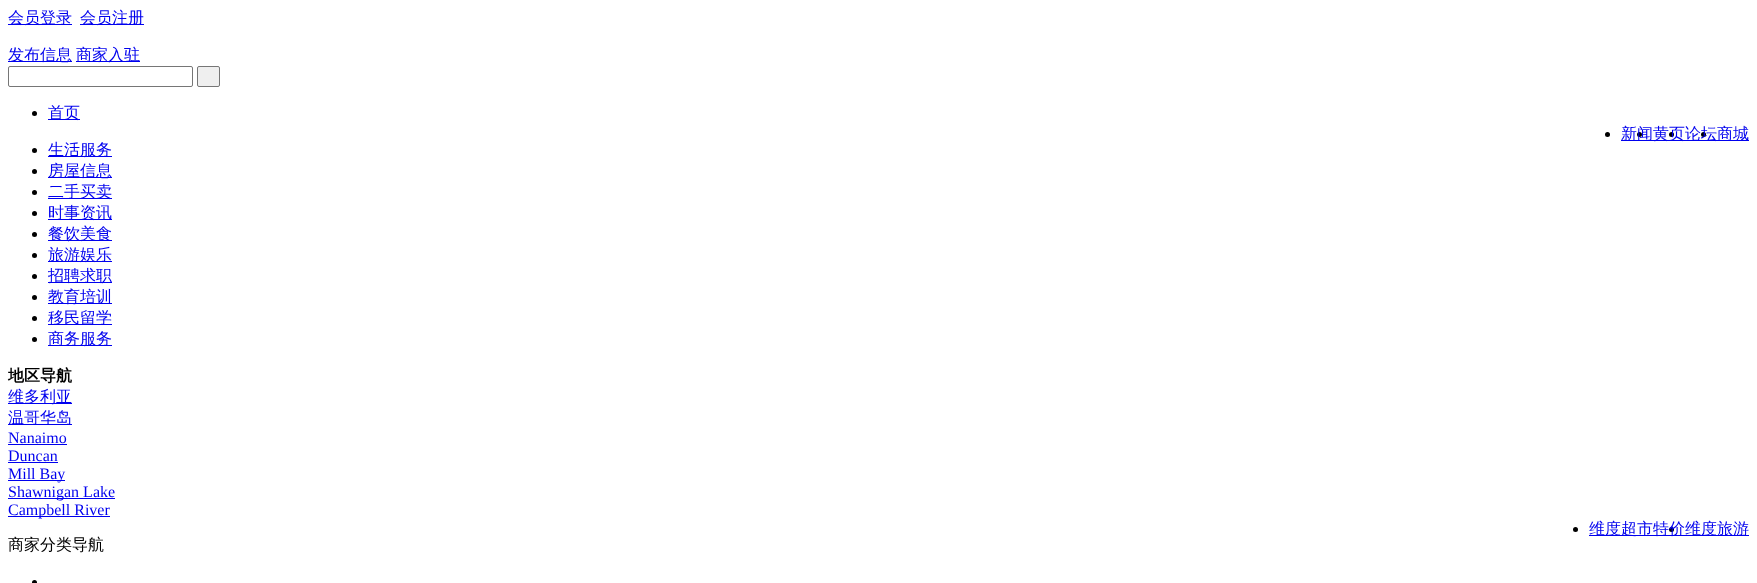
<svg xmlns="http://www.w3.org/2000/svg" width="1757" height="583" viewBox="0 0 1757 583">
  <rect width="100%" height="100%" fill="#fff"/>
  <path d="M8 24h64v1H8z" fill="#00e"/>
  <path d="M80 24h64v1H80z" fill="#00e"/>
  <path d="M8 61h64v1H8z" fill="#00e"/>
  <path d="M76 61h64v1H76z" fill="#00e"/>
  <rect x="8.5" y="66.5" width="184" height="20" rx="1.5" fill="none" stroke="#767676"/>
  <rect x="197.5" y="66.5" width="22" height="20" rx="1.5" fill="#efefef" stroke="#767676"/>
  <circle cx="34.5" cy="113.5" r="2.5" fill="#000"/>
  <path d="M48 119h32v1H48z" fill="#00e"/>
  <circle cx="1607.5" cy="134.5" r="2.5" fill="#000"/>
  <circle cx="1639.5" cy="134.5" r="2.5" fill="#000"/>
  <circle cx="1671.5" cy="134.5" r="2.5" fill="#000"/>
  <circle cx="1703.5" cy="134.5" r="2.5" fill="#000"/>
  <path d="M1621 140h128v1H1621z" fill="#00e"/>
  <circle cx="34.5" cy="150.5" r="2.5" fill="#000"/>
  <path d="M48 156h64v1H48z" fill="#00e"/>
  <circle cx="34.5" cy="171.5" r="2.5" fill="#000"/>
  <path d="M48 177h64v1H48z" fill="#00e"/>
  <circle cx="34.5" cy="192.5" r="2.5" fill="#000"/>
  <path d="M48 198h64v1H48z" fill="#00e"/>
  <circle cx="34.5" cy="213.5" r="2.5" fill="#000"/>
  <path d="M48 219h64v1H48z" fill="#00e"/>
  <circle cx="34.5" cy="234.5" r="2.5" fill="#000"/>
  <path d="M48 240h64v1H48z" fill="#00e"/>
  <circle cx="34.5" cy="255.5" r="2.5" fill="#000"/>
  <path d="M48 261h64v1H48z" fill="#00e"/>
  <circle cx="34.5" cy="276.5" r="2.5" fill="#000"/>
  <path d="M48 282h64v1H48z" fill="#00e"/>
  <circle cx="34.5" cy="297.5" r="2.5" fill="#000"/>
  <path d="M48 303h64v1H48z" fill="#00e"/>
  <circle cx="34.5" cy="318.5" r="2.5" fill="#000"/>
  <path d="M48 324h64v1H48z" fill="#00e"/>
  <circle cx="34.5" cy="339.5" r="2.5" fill="#000"/>
  <path d="M48 345h64v1H48z" fill="#00e"/>
  <path d="M8 403h64v1H8z" fill="#00e"/>
  <path d="M8 424h64v1H8z" fill="#00e"/>
  <path d="M8 444h59v1H8z" fill="#00e"/>
  <path d="M8 462h50v1H8z" fill="#00e"/>
  <path d="M8 480h57v1H8z" fill="#00e"/>
  <path d="M8 498h107v1H8z" fill="#00e"/>
  <path d="M8 516h102v1H8z" fill="#00e"/>
  <circle cx="1575.5" cy="529.5" r="2.5" fill="#000"/>
  <circle cx="1671.5" cy="529.5" r="2.5" fill="#000"/>
  <path d="M1589 535h160v1H1589z" fill="#00e"/>
  <circle cx="34.5" cy="582.5" r="2.5" fill="#000"/>
  <g font-family="WenQuanYi Zen Hei" font-size="16" font-weight="500" fill="#00e">
    <text x="8" y="23">会员登录</text>
    <text x="80" y="23">会员注册</text>
    <text x="8" y="60">发布信息</text>
    <text x="76" y="60">商家入驻</text>
    <text x="48" y="118">首页</text>
    <text x="1621" y="139">新闻</text>
    <text x="1653" y="139">黄页</text>
    <text x="1685" y="139">论坛</text>
    <text x="1717" y="139">商城</text>
    <text x="48" y="155">生活服务</text>
    <text x="48" y="176">房屋信息</text>
    <text x="48" y="197">二手买卖</text>
    <text x="48" y="218">时事资讯</text>
    <text x="48" y="239">餐饮美食</text>
    <text x="48" y="260">旅游娱乐</text>
    <text x="48" y="281">招聘求职</text>
    <text x="48" y="302">教育培训</text>
    <text x="48" y="323">移民留学</text>
    <text x="48" y="344">商务服务</text>
  </g>
  <text x="8" y="381" font-family="WenQuanYi Zen Hei" font-size="16" font-weight="bold" fill="#000">地区导航</text>
  <g font-family="WenQuanYi Zen Hei" font-size="16" font-weight="500" fill="#00e">
    <text x="8" y="402">维多利亚</text>
    <text x="8" y="423">温哥华岛</text>
  </g>
  <g font-family="Liberation Serif" font-size="16" fill="#00e">
    <text x="8" y="443">Nanaimo</text>
    <text x="8" y="461">Duncan</text>
    <text x="8" y="479">Mill Bay</text>
    <text x="8" y="497">Shawnigan Lake</text>
    <text x="8" y="515">Campbell River</text>
  </g>
  <g font-family="WenQuanYi Zen Hei" font-size="16" font-weight="500" fill="#00e">
    <text x="1589" y="534">维度超市特价</text>
    <text x="1685" y="534">维度旅游</text>
  </g>
  <text x="8" y="550" font-family="WenQuanYi Zen Hei" font-size="16" font-weight="500" fill="#000">商家分类导航</text>
</svg>
